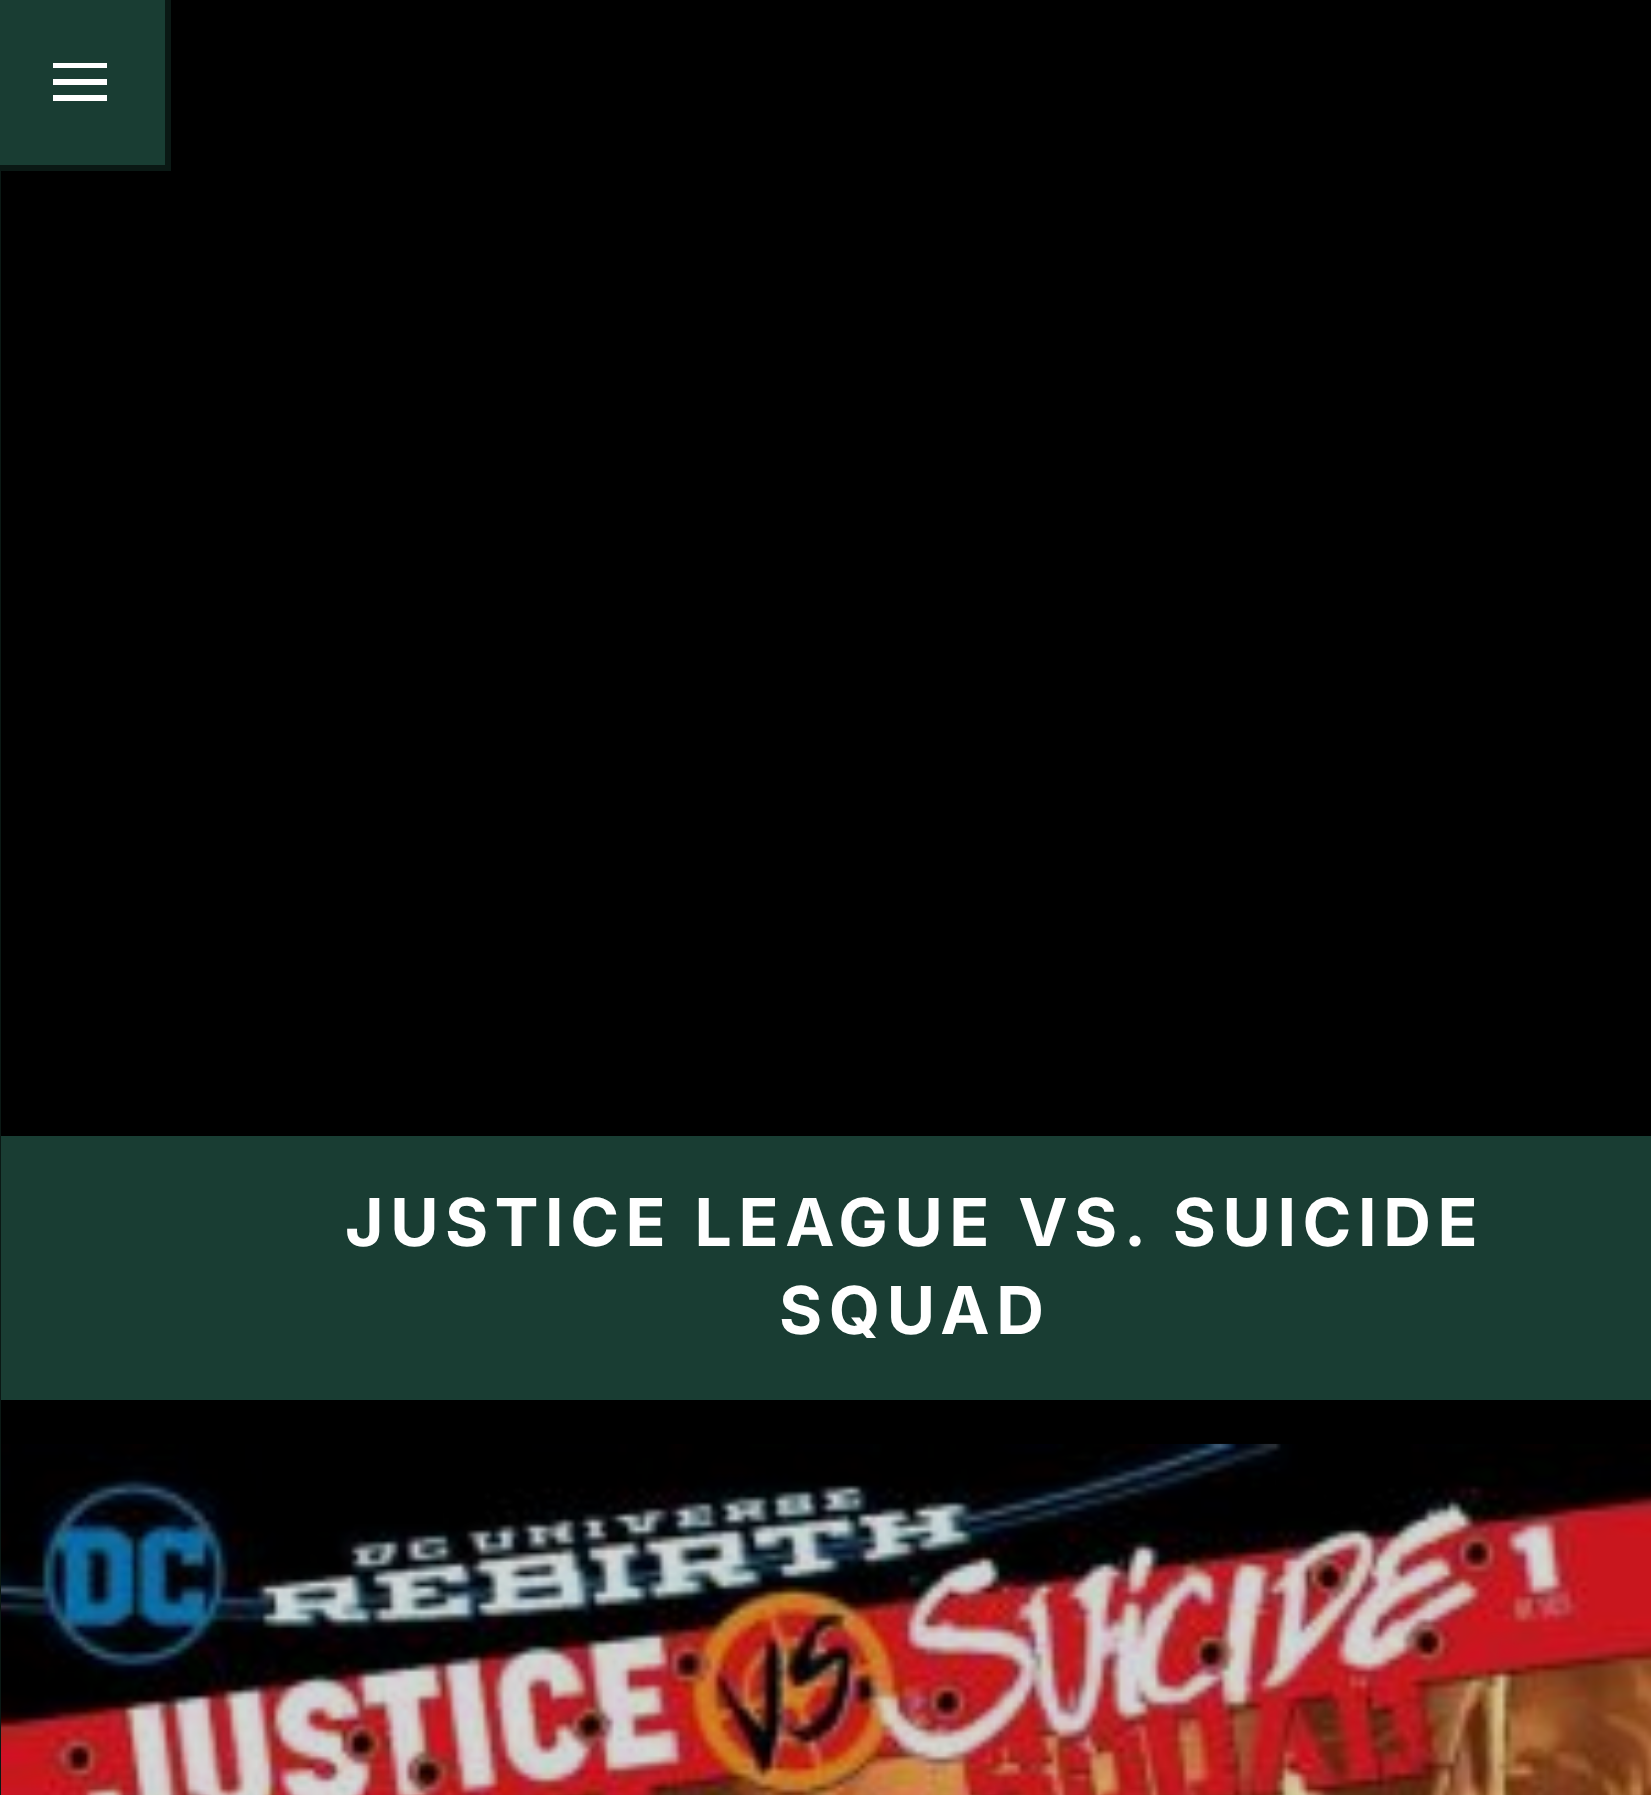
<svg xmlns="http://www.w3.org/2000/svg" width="1651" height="1795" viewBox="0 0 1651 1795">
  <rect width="100%" height="100%" fill="#000"/>
  <path d="M0 171h1v1624H0z" fill="#0a1814"/>
  <path d="M0 0h165v165H0z" fill="#193d33"/>
  <path d="M165 0h6v171H165z" fill="#0a1814"/>
  <path d="M0 165h171v6H0z" fill="#0a1814"/>
  <path d="M53 63H107V68H53ZM53 79H107V85H53ZM53 95H107V101H53Z" fill="#fff"/>
  <path d="M1 1136h1650v264H1z" fill="#193d33"/>
  <image x="1" y="1443" width="1650" height="352" href="img/1.png"/>
  <g font-family="Inter" font-size="66" font-weight="bold" letter-spacing="6.6" fill="#fff">
    <text x="345" y="1246">JUSTICE LEAGUE VS. SUICIDE</text>
    <text x="779" y="1334">SQUAD</text>
  </g>
</svg>
